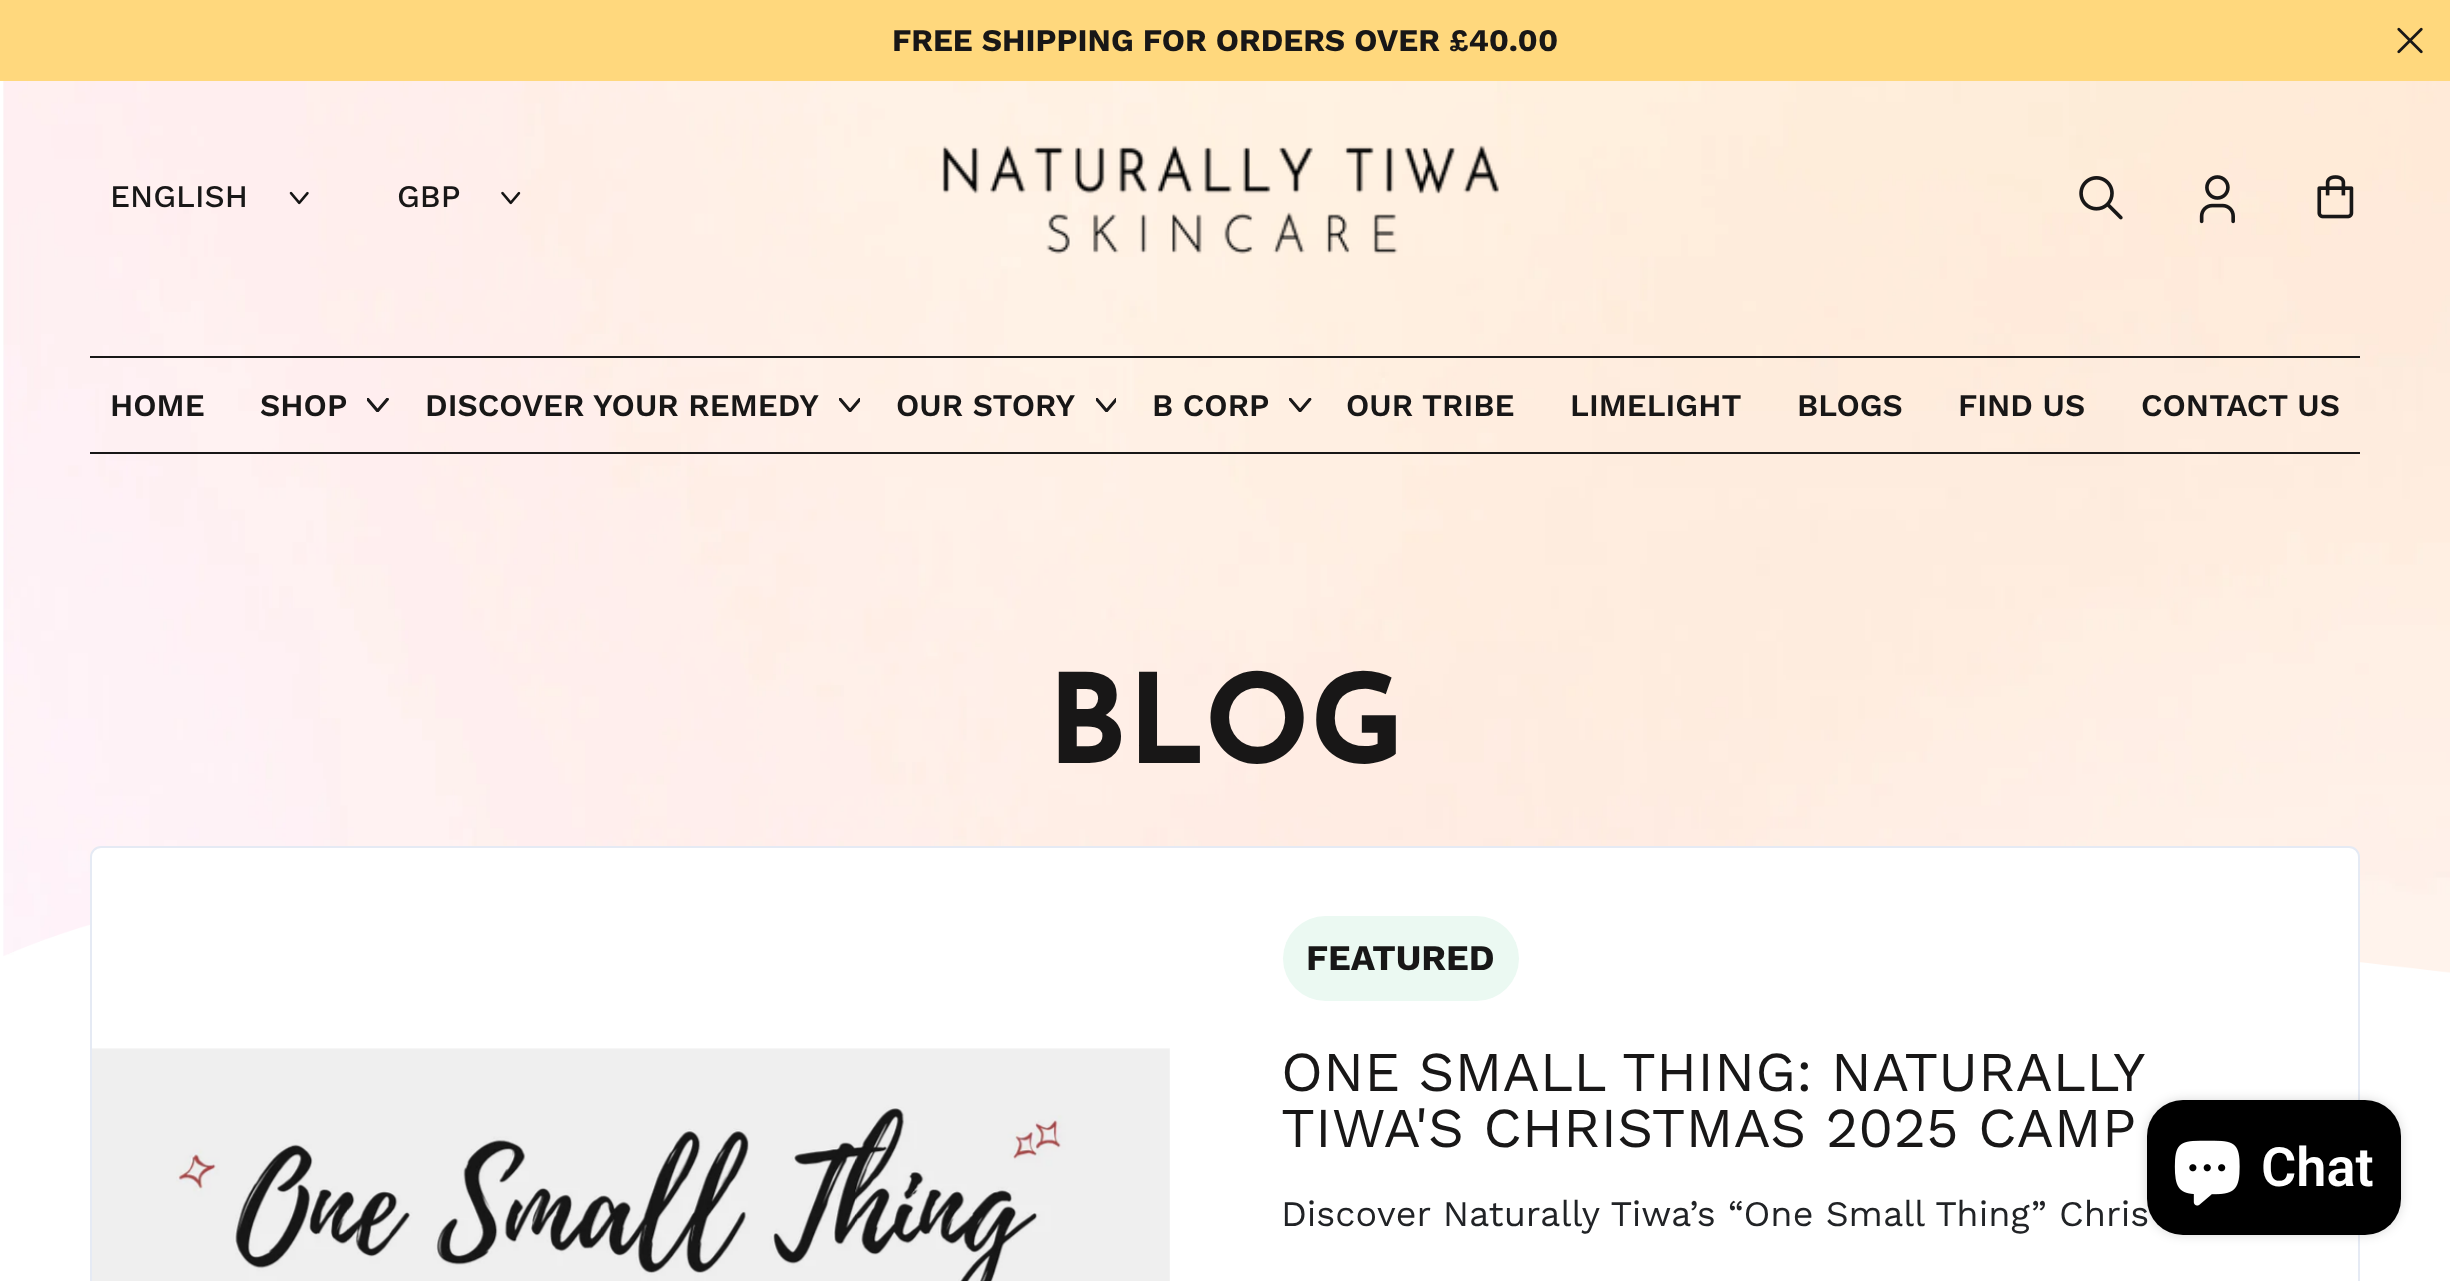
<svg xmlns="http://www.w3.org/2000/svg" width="2450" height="1281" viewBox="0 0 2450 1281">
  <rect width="100%" height="100%" fill="#fff"/>
  <path d="M0 0h2450v81H0z" fill="#ffd87d"/>
  <image x="2397" y="27" width="26" height="27" href="img/1.png"/>
  <image x="3" y="81" width="2447" height="892" href="img/12.png"/>
  <image x="289" y="191" width="20" height="14" href="img/2.png"/>
  <image x="501" y="191" width="20" height="14" href="img/3.png"/>
  <image x="942" y="145" width="557" height="109" href="img/4.png"/>
  <image x="2079" y="176" width="44" height="44" href="img/5.png"/>
  <image x="2199" y="175" width="36" height="49" href="img/6.png"/>
  <image x="2317" y="175" width="37" height="44" href="img/7.png"/>
  <path d="M90 356h2270v2H90z" fill="#181717"/>
  <path d="M90 452h2270v2H90z" fill="#181717"/>
  <image x="367" y="398" width="22" height="14" href="img/8.png"/>
  <image x="839" y="398" width="21" height="14" href="img/9.png"/>
  <image x="1096" y="398" width="20" height="14" href="img/10.png"/>
  <image x="1289" y="398" width="23" height="14" href="img/11.png"/>
  <image x="3" y="924" width="2447" height="327" href="img/13.png"/>
  <rect x="91" y="847" width="2268" height="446" rx="10" fill="#fff" stroke="#e5eaf4" stroke-width="2"/>
  <image x="92" y="1048" width="1078" height="233" href="img/14.png"/>
  <rect x="1283" y="916" width="236" height="85" rx="42.5" fill="#ebf9f2"/>
  <rect x="2147" y="1100" width="254" height="135" rx="36" fill="#00000026" filter="blur(5.5px)"/>
  <text x="892" y="51" font-family="Work Sans" font-size="31.5" font-weight="bold" fill="#181717">FREE SHIPPING FOR ORDERS OVER £40.00</text>
  <g font-family="Work Sans" font-size="31.5" font-weight="500" fill="#181717">
    <text x="110" y="207">ENGLISH</text>
    <text x="397" y="207">GBP</text>
  </g>
  <g font-family="Work Sans" font-size="31.5" font-weight="600" fill="#181717">
    <text x="110" y="416">HOME</text>
    <text x="260" y="416">SHOP</text>
    <text x="425" y="416">DISCOVER YOUR REMEDY</text>
    <text x="896" y="416">OUR STORY</text>
    <text x="1152" y="416">B CORP</text>
    <text x="1346" y="416">OUR TRIBE</text>
    <text x="1570" y="416">LIMELIGHT</text>
    <text x="1797" y="416">BLOGS</text>
    <text x="1958" y="416">FIND US</text>
    <text x="2141" y="416">CONTACT US</text>
  </g>
  <text x="1047" y="763" font-family="Josefin Sans" font-size="124" font-weight="bold" fill="#181717">BLOG</text>
  <text x="1306" y="970" font-family="Work Sans" font-size="36" font-weight="bold" fill="#181717">FEATURED</text>
  <g font-family="Work Sans" font-size="56.25" fill="#181717">
    <text x="1281" y="1091" word-spacing="-1">ONE SMALL THING: NATURALLY</text>
    <text x="1281" y="1147">TIWA'S CHRISTMAS 2025 CAMP</text>
  </g>
  <text x="1281" y="1226" font-family="Work Sans" font-size="36" fill="#212326">Discover Naturally Tiwa’s “One Small Thing” Chris</text>
  <rect x="2147" y="1100" width="254" height="135" rx="36" fill="#000"/>
  <image x="2174" y="1140" width="66" height="66" href="img/15.png"/>
  <text x="2261" y="1186" font-family="Roboto" font-size="54" font-weight="600" fill="#fff">Chat</text>
</svg>
